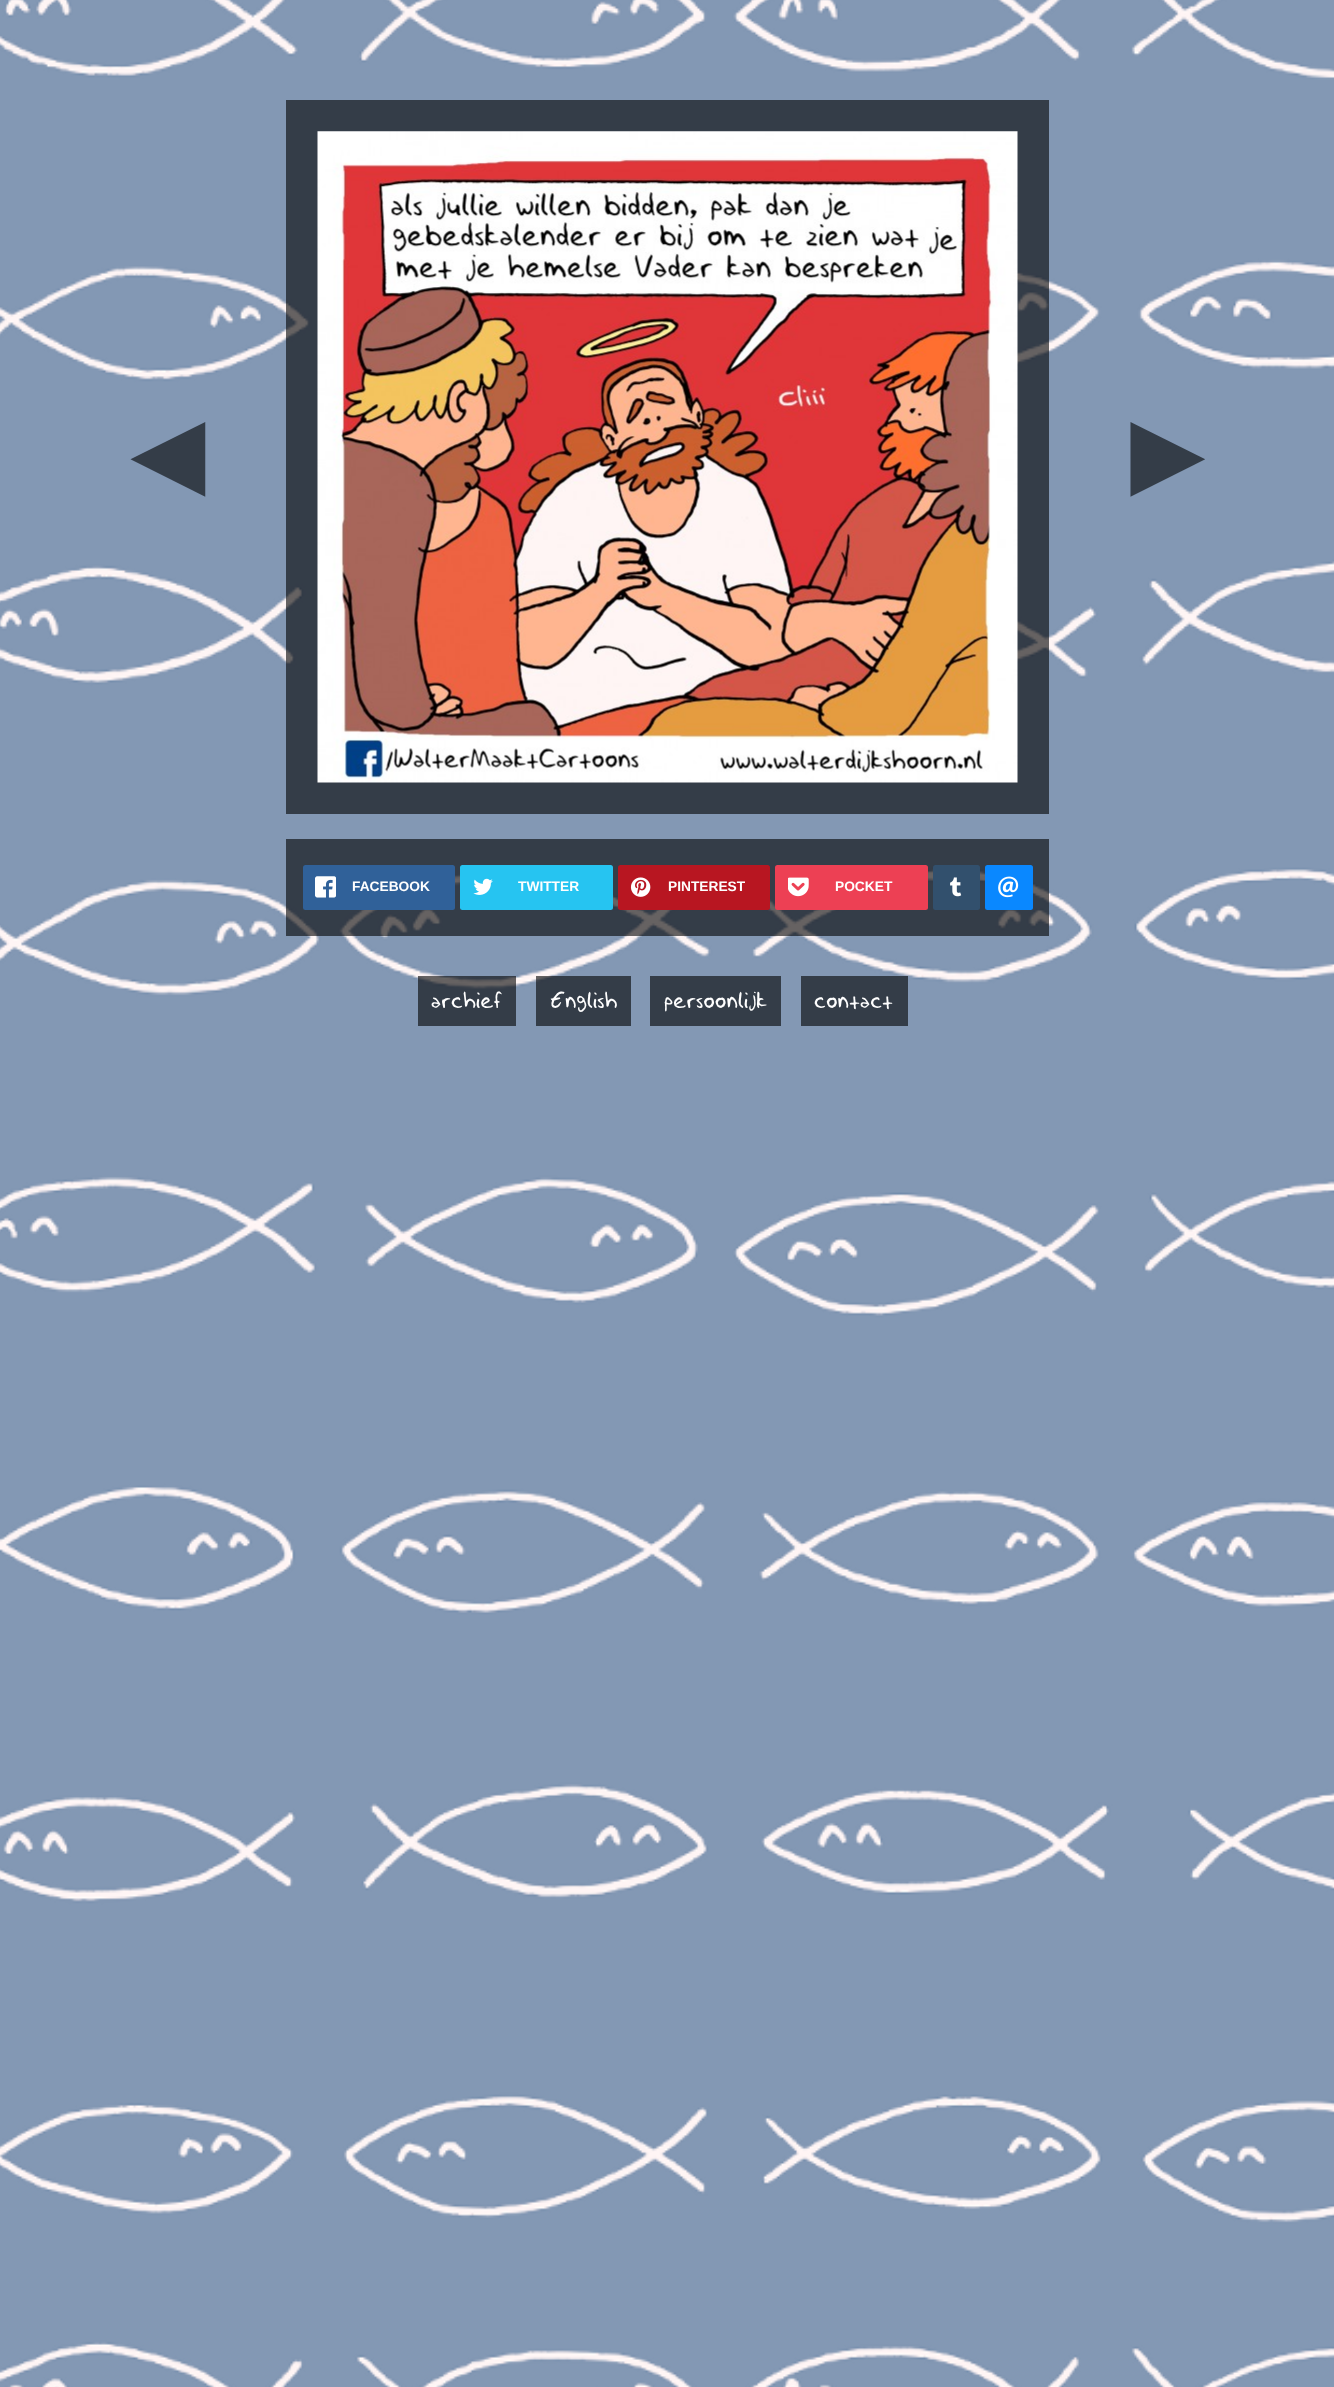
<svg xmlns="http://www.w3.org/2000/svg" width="1334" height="2387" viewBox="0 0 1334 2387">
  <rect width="100%" height="100%" fill="#fff"/>
  <image x="0" y="0" width="1334" height="2387" href="img/1.png"/>
  <path d="M286 100h763v714H286z" fill="#00000099"/>
  <image x="317" y="131" width="701" height="652" href="img/2.png"/>
  <path d="M286 839h763v97H286z" fill="#00000099"/>
  <rect x="303" y="865" width="152" height="45" rx="2.5" fill="#306199"/>
  <image x="315" y="876" width="21" height="22" href="img/3.png"/>
  <rect x="460" y="865" width="153" height="45" rx="2.5" fill="#26c4f1"/>
  <image x="473" y="878" width="20" height="17" href="img/4.png"/>
  <rect x="618" y="865" width="152" height="45" rx="2.5" fill="#b81621"/>
  <image x="630" y="877" width="21" height="20" href="img/5.png"/>
  <rect x="775" y="865" width="153" height="45" rx="2.5" fill="#ed4054"/>
  <image x="788" y="877" width="21" height="20" href="img/6.png"/>
  <rect x="933" y="865" width="47" height="45" rx="2.5" fill="#32506d"/>
  <image x="950" y="877" width="12" height="20" href="img/7.png"/>
  <rect x="985" y="865" width="48" height="45" rx="2.5" fill="#0a88ff"/>
  <image x="998" y="876" width="21" height="22" href="img/8.png"/>
  <path d="M418 976h98v50H418z" fill="#00000099"/>
  <path d="M536 976h95v50H536z" fill="#00000099"/>
  <path d="M650 976h131v50H650z" fill="#343d48"/>
  <path d="M801 976h107v50H801z" fill="#343d48"/>
  <g font-family="Liberation Sans" font-size="125" fill="#343d48">
    <text x="106" y="495">◄</text>
    <text x="1106" y="495">►</text>
  </g>
  <g font-family="Liberation Sans" font-size="13.75" font-weight="bold" fill="#fff">
    <text x="352" y="891">FACEBOOK</text>
    <text x="518" y="891">TWITTER</text>
    <text x="668" y="891">PINTEREST</text>
    <text x="835" y="891">POCKET</text>
  </g>
  <g font-family="'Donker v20'" font-size="18.75" fill="#fff">
    <text x="431" y="1008">archief</text>
    <text x="550" y="1008">English</text>
    <text x="664" y="1008">persoonlijk</text>
    <text x="814" y="1008">contact</text>
  </g>
</svg>
